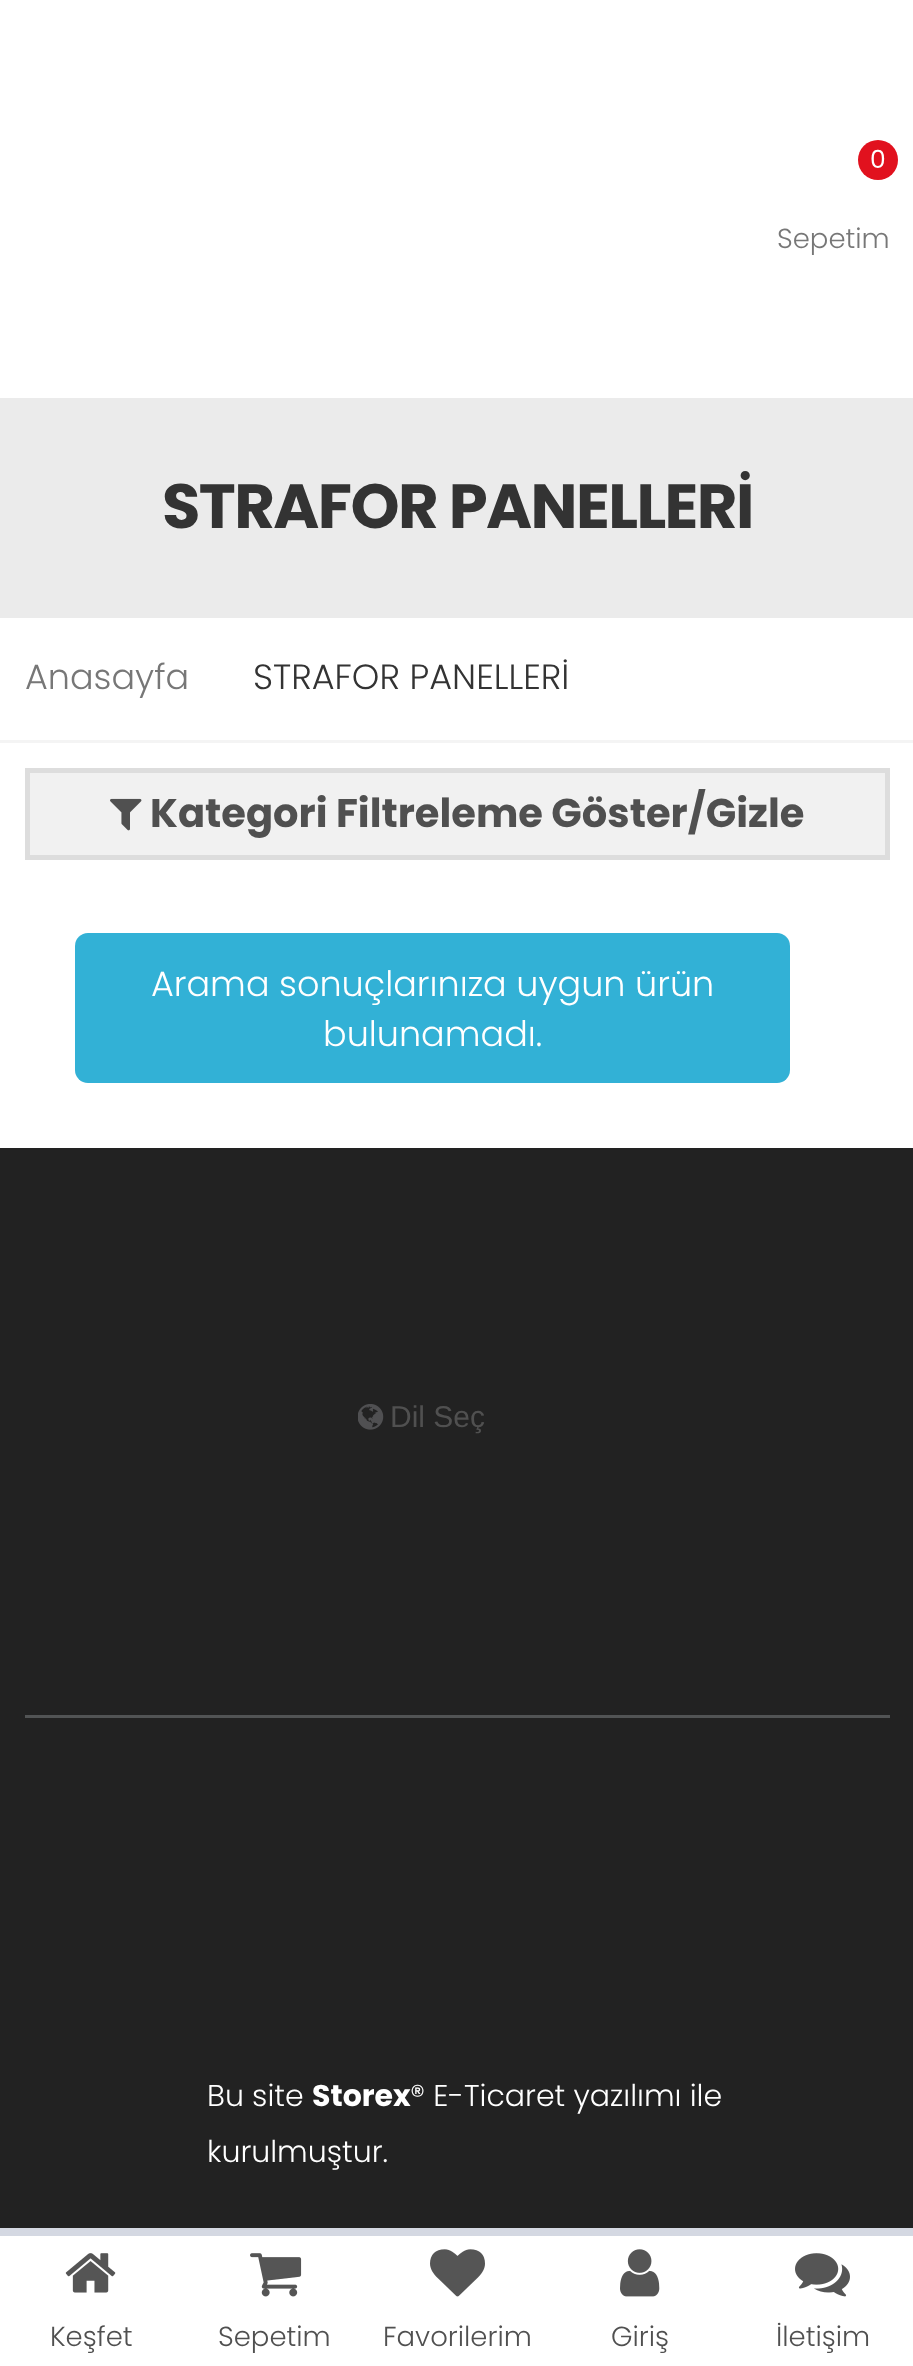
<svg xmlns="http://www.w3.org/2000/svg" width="913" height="2366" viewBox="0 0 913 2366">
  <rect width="100%" height="100%" fill="#fff"/>
  <circle cx="878" cy="160" r="20" fill="#e1111e"/>
  <path d="M0 398h913v220H0z" fill="#ebebeb"/>
  <path d="M0 740h913v3H0z" fill="#f4f4f4"/>
  <path d="M27.5 770.5h860v87H27.5z" fill="#f1f1f1" stroke="#ddd" stroke-width="5"/>
  <image x="110" y="798" width="32" height="33" href="img/1.png"/>
  <rect x="75" y="933" width="715" height="150" rx="13" fill="#32b1d6"/>
  <path d="M0 1148h913v1080H0z" fill="#222"/>
  <image x="358" y="1404" width="26" height="26" href="img/2.png"/>
  <path d="M25 1715h865v3H25z" fill="#525455"/>
  <path d="M0 2228h913v8H0z" fill="#d4d8e2"/>
  <image x="65" y="2253" width="51" height="40" href="img/3.png"/>
  <image x="250" y="2253" width="52" height="44" href="img/4.png"/>
  <image x="430" y="2249" width="55" height="48" href="img/5.png"/>
  <image x="620" y="2249" width="40" height="48" href="img/6.png"/>
  <image x="795" y="2253" width="55" height="44" href="img/7.png"/>
  <text x="870" y="168" font-family="Poppins" font-size="25" fill="#fff">0</text>
  <text x="777" y="248" font-family="Poppins" font-size="27.5" font-weight="300" fill="#777">Sepetim</text>
  <text x="162" y="528" font-family="Poppins" font-size="62.5" font-weight="bold" letter-spacing="-1.6" fill="#333">STRAFOR PANELLERİ</text>
  <text x="25" y="689" font-family="Poppins" font-size="35" font-weight="300" fill="#777">Anasayfa</text>
  <text x="253" y="689" font-family="Poppins" font-size="35" font-weight="300" fill="#333">STRAFOR PANELLERİ</text>
  <text x="150" y="827" font-family="Poppins" font-size="40" font-weight="bold" fill="#505050">Kategori Filtreleme Göster/Gizle</text>
  <g font-family="Poppins" font-size="35" font-weight="300" fill="#fff">
    <text x="151" y="996">Arama sonuçlarınıza uygun ürün</text>
    <text x="323" y="1046">bulunamadı.</text>
  </g>
  <text x="390" y="1427" font-family="Liberation Sans" font-size="30" fill="#505050">Dil Seç</text>
  <text x="207" y="2106" font-family="Poppins" font-size="30" font-weight="300" fill="#fff">Bu site</text>
  <text x="312" y="2106" font-family="Poppins" font-size="30" font-weight="bold" fill="#fff">Storex</text>
  <g font-family="Poppins" font-size="30" font-weight="300" fill="#fff">
    <text x="410" y="2106">® E-Ticaret yazılımı ile</text>
    <text x="207" y="2162">kurulmuştur.</text>
  </g>
  <g font-family="Poppins" font-size="27.5" font-weight="300" fill="#505050">
    <text x="50" y="2346">Keşfet</text>
    <text x="218" y="2346">Sepetim</text>
    <text x="383" y="2346">Favorilerim</text>
    <text x="611" y="2346">Giriş</text>
    <text x="776" y="2346">İletişim</text>
  </g>
</svg>
